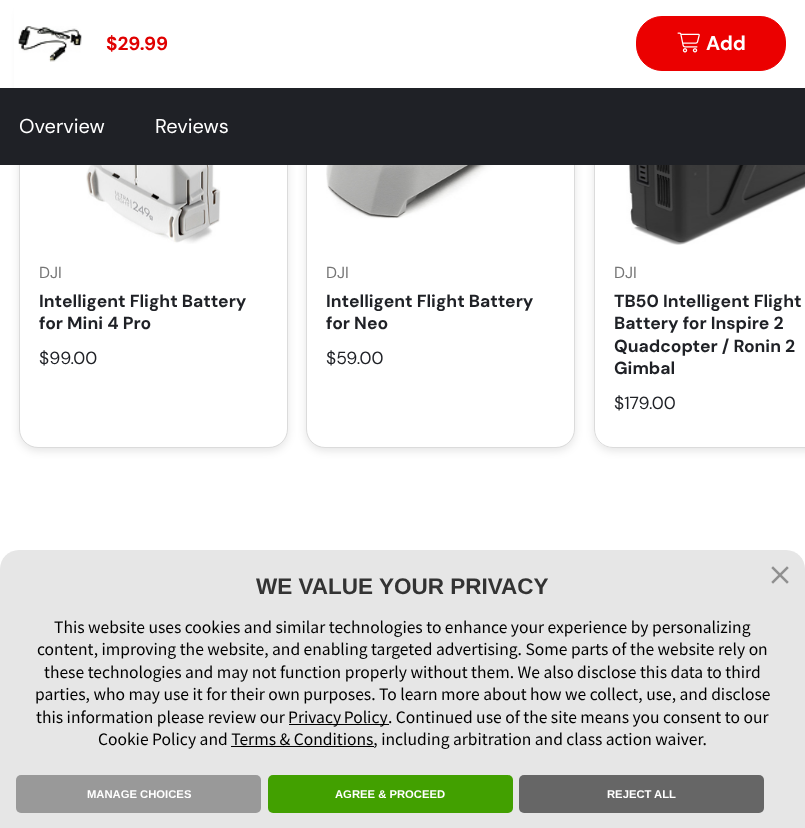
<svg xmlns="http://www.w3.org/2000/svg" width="805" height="828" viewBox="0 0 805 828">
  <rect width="100%" height="100%" fill="#fff"/>
  <rect x="19" width="269" height="451" rx="19" fill="#0000001a" filter="blur(4px)"/>
  <rect x="19.5" y="-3.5" width="268" height="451" rx="18.5" fill="#fff" stroke="#dbdbdb"/>
  <rect x="306" width="269" height="451" rx="19" fill="#0000001a" filter="blur(4px)"/>
  <rect x="306.5" y="-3.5" width="268" height="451" rx="18.5" fill="#fff" stroke="#dbdbdb"/>
  <rect x="594" width="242" height="451" rx="19" fill="#0000001a" filter="blur(4px)"/>
  <path d="M613-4H805V448H613C602.5 448 594 439.5 594 429V15C594 4.5 602.5-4 613-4Z" fill="#fff"/>
  <rect x="594.5" y="-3.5" width="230" height="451" rx="18.5" fill="none" stroke="#dbdbdb"/>
  <path d="M14 0h589v88H14z" fill="#fff"/>
  <path d="M0 88h805v77H0z" fill="#1f2126"/>
  <image x="18" y="26" width="64" height="36" href="img/1.png"/>
  <rect x="636.5" y="16.5" width="149" height="54" rx="25.5" fill="#eb0000" stroke="#eb0000"/>
  <image x="677" y="32" width="23" height="21" href="img/2.png"/>
  <image x="86" y="165" width="135" height="79" href="img/3.png"/>
  <image x="326" y="165" width="230" height="54" href="img/4.png"/>
  <image x="626" y="165" width="179" height="80" href="img/5.png"/>
  <path d="M19 550H786C796.5 550 805 558.5 805 569V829H0V569C0 558.5 8.5 550 19 550Z" fill="#e6e6e6"/>
  <image x="771" y="566" width="18" height="18" href="img/6.png"/>
  <path d="M289 724h100v1H289z" fill="#000"/>
  <path d="M231 746h143v1H231z" fill="#000"/>
  <rect x="16" y="775" width="245" height="38" rx="5" fill="#999"/>
  <rect x="268" y="775" width="245" height="38" rx="5" fill="#42a000"/>
  <rect x="519" y="775" width="245" height="38" rx="5" fill="#666"/>
  <text x="106" y="50" font-family="DM Sans" font-size="19" font-weight="bold" fill="#e00000">$29.99</text>
  <text x="706" y="50" font-family="DM Sans" font-size="20" font-weight="bold" fill="#fff">Add</text>
  <g font-family="DM Sans" font-size="20" fill="#fff">
    <text x="19" y="133">Overview</text>
    <text x="155" y="133">Reviews</text>
  </g>
  <text x="39" y="278" font-family="DM Sans" font-size="16" fill="#757575">DJI</text>
  <g font-family="DM Sans" font-size="17.5" font-weight="bold" fill="#1f2126">
    <text x="39" y="307">Intelligent Flight Battery</text>
    <text x="39" y="329">for Mini 4 Pro</text>
  </g>
  <text x="39" y="364" font-family="DM Sans" font-size="17.5" fill="#1f2126">$99.00</text>
  <text x="326" y="278" font-family="DM Sans" font-size="16" fill="#757575">DJI</text>
  <g font-family="DM Sans" font-size="17.5" font-weight="bold" fill="#1f2126">
    <text x="326" y="307">Intelligent Flight Battery</text>
    <text x="326" y="329">for Neo</text>
  </g>
  <text x="326" y="364" font-family="DM Sans" font-size="17.5" fill="#1f2126">$59.00</text>
  <text x="614" y="278" font-family="DM Sans" font-size="16" fill="#757575">DJI</text>
  <g font-family="DM Sans" font-size="17.5" font-weight="bold" fill="#1f2126">
    <text x="614" y="307">TB50 Intelligent Flight</text>
    <text x="614" y="329">Battery for Inspire 2</text>
    <text x="614" y="352">Quadcopter / Ronin 2</text>
    <text x="614" y="374">Gimbal</text>
  </g>
  <text x="614" y="409" font-family="DM Sans" font-size="17.5" fill="#1f2126">$179.00</text>
  <text x="256" y="594" font-family="Liberation Sans" font-size="22.5" font-weight="bold" fill="#333">WE VALUE YOUR PRIVACY</text>
  <g font-family="Source Sans Pro" font-size="17.5" fill="#000">
    <text x="54" y="633">This website uses cookies and similar technologies to enhance your experience by personalizing</text>
    <text x="37" y="655">content, improving the website, and enabling targeted advertising. Some parts of the website rely on</text>
    <text x="44" y="678">these technologies and may not function properly without them. We also disclose this data to third</text>
    <text x="35" y="700">parties, who may use it for their own purposes. To learn more about how we collect, use, and disclose</text>
    <text x="36" y="723">this information please review our</text>
    <text x="288" y="723" word-spacing="-1">Privacy Policy</text>
    <text x="388" y="723">. Continued use of the site means you consent to our</text>
    <text x="98" y="745">Cookie Policy and Terms &amp; Conditions, including arbitration and class action waiver.</text>
  </g>
  <g font-family="Liberation Sans" font-size="11.25" font-weight="bold" fill="#fff">
    <text x="87" y="798">MANAGE CHOICES</text>
    <text x="335" y="798">AGREE &amp; PROCEED</text>
    <text x="607" y="798">REJECT ALL</text>
  </g>
</svg>
